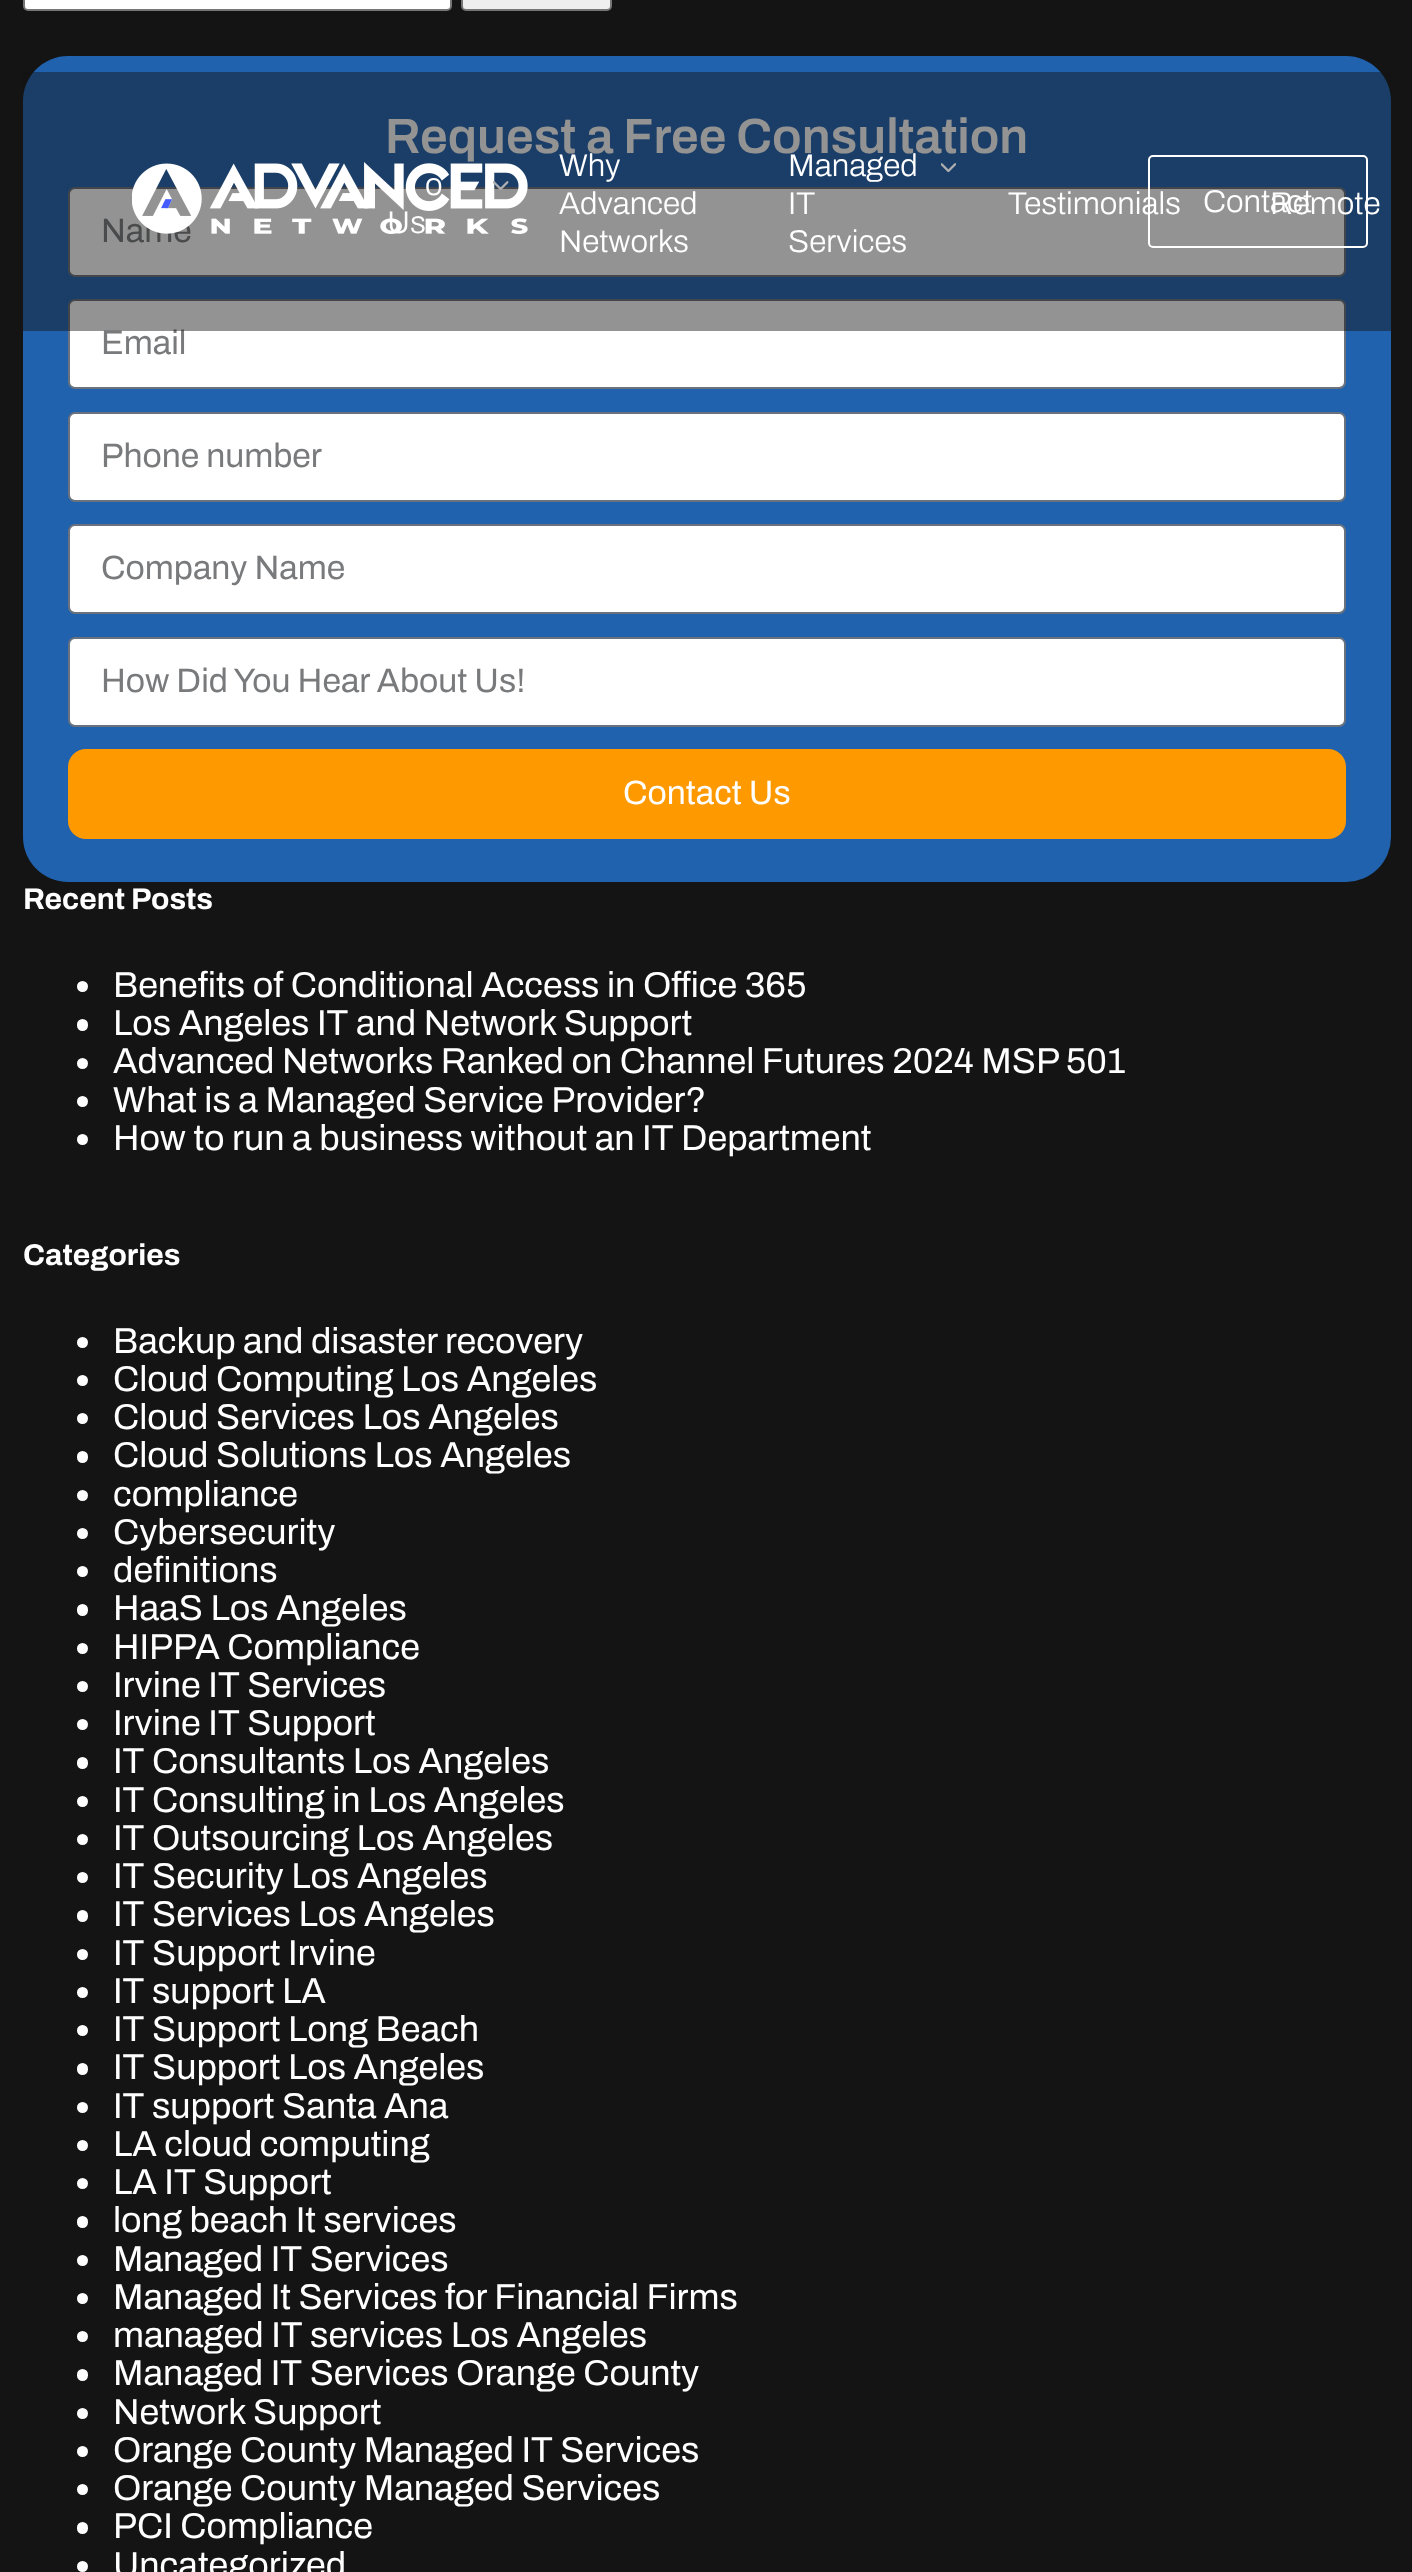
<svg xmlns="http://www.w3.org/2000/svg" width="1412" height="2572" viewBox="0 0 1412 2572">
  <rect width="100%" height="100%" fill="#141414"/>
  <rect x="24" y="-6" width="427" height="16" rx="4" fill="#fff" stroke="#767676" stroke-width="2"/>
  <rect x="462" y="-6" width="149" height="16" rx="4" fill="#efefef" stroke="#767676" stroke-width="2"/>
  <rect x="23" y="56" width="1368" height="826" rx="45" fill="#2062ae"/>
  <rect x="69" y="188" width="1276" height="88" rx="6" fill="#fff" stroke="#69727d" stroke-width="2"/>
  <rect x="69" y="300" width="1276" height="88" rx="6" fill="#fff" stroke="#69727d" stroke-width="2"/>
  <rect x="69" y="413" width="1276" height="88" rx="6" fill="#fff" stroke="#69727d" stroke-width="2"/>
  <rect x="69" y="525" width="1276" height="88" rx="6" fill="#fff" stroke="#69727d" stroke-width="2"/>
  <rect x="69" y="638" width="1276" height="88" rx="6" fill="#fff" stroke="#69727d" stroke-width="2"/>
  <rect x="68" y="749" width="1278" height="90" rx="18" fill="#f90"/>
  <circle cx="82.5" cy="986.5" r="5.5" fill="#fff"/>
  <rect x="77" y="1019" width="11" height="12" rx="5.5" fill="#fff"/>
  <circle cx="82.5" cy="1063.5" r="5.5" fill="#fff"/>
  <circle cx="82.5" cy="1101.5" r="5.5" fill="#fff"/>
  <circle cx="82.5" cy="1139.5" r="5.5" fill="#fff"/>
  <circle cx="82.5" cy="1342.5" r="5.5" fill="#fff"/>
  <circle cx="82.5" cy="1380.5" r="5.5" fill="#fff"/>
  <circle cx="82.5" cy="1418.5" r="5.5" fill="#fff"/>
  <rect x="77" y="1451" width="11" height="12" rx="5.5" fill="#fff"/>
  <circle cx="82.5" cy="1495.5" r="5.5" fill="#fff"/>
  <circle cx="82.5" cy="1533.5" r="5.5" fill="#fff"/>
  <circle cx="82.5" cy="1571.5" r="5.5" fill="#fff"/>
  <rect x="77" y="1604" width="11" height="12" rx="5.5" fill="#fff"/>
  <circle cx="82.5" cy="1648.5" r="5.5" fill="#fff"/>
  <circle cx="82.5" cy="1686.5" r="5.5" fill="#fff"/>
  <circle cx="82.5" cy="1724.5" r="5.5" fill="#fff"/>
  <rect x="77" y="1757" width="11" height="12" rx="5.5" fill="#fff"/>
  <circle cx="82.5" cy="1801.5" r="5.5" fill="#fff"/>
  <circle cx="82.5" cy="1839.5" r="5.5" fill="#fff"/>
  <circle cx="82.5" cy="1877.5" r="5.5" fill="#fff"/>
  <rect x="77" y="1910" width="11" height="12" rx="5.5" fill="#fff"/>
  <circle cx="82.5" cy="1954.5" r="5.5" fill="#fff"/>
  <circle cx="82.5" cy="1992.5" r="5.5" fill="#fff"/>
  <circle cx="82.5" cy="2030.5" r="5.5" fill="#fff"/>
  <rect x="77" y="2063" width="11" height="12" rx="5.5" fill="#fff"/>
  <circle cx="82.5" cy="2107.5" r="5.5" fill="#fff"/>
  <circle cx="82.5" cy="2145.5" r="5.5" fill="#fff"/>
  <circle cx="82.5" cy="2183.5" r="5.5" fill="#fff"/>
  <rect x="77" y="2216" width="11" height="12" rx="5.5" fill="#fff"/>
  <circle cx="82.5" cy="2260.5" r="5.5" fill="#fff"/>
  <circle cx="82.5" cy="2298.5" r="5.5" fill="#fff"/>
  <circle cx="82.5" cy="2336.5" r="5.5" fill="#fff"/>
  <rect x="77" y="2369" width="11" height="12" rx="5.5" fill="#fff"/>
  <circle cx="82.5" cy="2413.5" r="5.5" fill="#fff"/>
  <circle cx="82.5" cy="2451.5" r="5.5" fill="#fff"/>
  <circle cx="82.5" cy="2489.5" r="5.5" fill="#fff"/>
  <rect x="77" y="2522" width="11" height="12" rx="5.5" fill="#fff"/>
  <circle cx="82.5" cy="2566.5" r="5.5" fill="#fff"/>
  <text x="385" y="153" font-family="Archivo" font-size="49.5" font-weight="600" fill="#fff">Request a Free Consultation</text>
  <g font-family="Archivo" font-size="33.75" fill="#797a7c">
    <text x="101" y="242">Name</text>
    <text x="101" y="354">Email</text>
    <text x="101" y="467">Phone number</text>
    <text x="101" y="579">Company Name</text>
    <text x="101" y="692">How Did You Hear About Us!</text>
  </g>
  <text x="623" y="804" font-family="Archivo" font-size="33.75" fill="#fff">Contact Us</text>
  <text x="23" y="909" font-family="Archivo" font-size="30" font-weight="bold" fill="#fff">Recent Posts</text>
  <g font-family="Archivo" font-size="36" fill="#fff">
    <text x="113" y="997">Benefits of Conditional Access in Office 365</text>
    <text x="113" y="1035">Los Angeles IT and Network Support</text>
    <text x="113" y="1073">Advanced Networks Ranked on Channel Futures 2024 MSP 501</text>
    <text x="113" y="1112">What is a Managed Service Provider?</text>
    <text x="113" y="1150">How to run a business without an IT Department</text>
  </g>
  <text x="23" y="1265" font-family="Archivo" font-size="30" font-weight="bold" fill="#fff">Categories</text>
  <g font-family="Archivo" font-size="36" fill="#fff">
    <text x="113" y="1353">Backup and disaster recovery</text>
    <text x="113" y="1391">Cloud Computing Los Angeles</text>
    <text x="113" y="1429">Cloud Services Los Angeles</text>
    <text x="113" y="1467">Cloud Solutions Los Angeles</text>
    <text x="113" y="1506">compliance</text>
    <text x="113" y="1544">Cybersecurity</text>
    <text x="113" y="1582">definitions</text>
    <text x="113" y="1620">HaaS Los Angeles</text>
    <text x="113" y="1659">HIPPA Compliance</text>
    <text x="113" y="1697">Irvine IT Services</text>
    <text x="113" y="1735">Irvine IT Support</text>
    <text x="113" y="1773">IT Consultants Los Angeles</text>
    <text x="113" y="1812">IT Consulting in Los Angeles</text>
    <text x="113" y="1850">IT Outsourcing Los Angeles</text>
    <text x="113" y="1888">IT Security Los Angeles</text>
    <text x="113" y="1926">IT Services Los Angeles</text>
    <text x="113" y="1965">IT Support Irvine</text>
    <text x="113" y="2003">IT support LA</text>
    <text x="113" y="2041">IT Support Long Beach</text>
    <text x="113" y="2079">IT Support Los Angeles</text>
    <text x="113" y="2118">IT support Santa Ana</text>
    <text x="113" y="2156">LA cloud computing</text>
    <text x="113" y="2194">LA IT Support</text>
    <text x="113" y="2232">long beach It services</text>
    <text x="113" y="2271">Managed IT Services</text>
    <text x="113" y="2309">Managed It Services for Financial Firms</text>
    <text x="113" y="2347">managed IT services Los Angeles</text>
    <text x="113" y="2385">Managed IT Services Orange County</text>
    <text x="113" y="2424">Network Support</text>
    <text x="113" y="2462">Orange County Managed IT Services</text>
    <text x="113" y="2500">Orange County Managed Services</text>
    <text x="113" y="2538">PCI Compliance</text>
    <text x="113" y="2577">Uncategorized</text>
  </g>
  <path d="M23 72h1368v259H23z" fill="#14141475"/>
  <image x="132" y="162" width="396" height="72" href="img/1.png"/>
  <text x="425" y="195" font-family="Archivo" font-size="31.5" font-weight="300" fill="#fff">o</text>
  <image x="493" y="181" width="16" height="9" href="img/2.png"/>
  <g font-family="Archivo" font-size="31.5" font-weight="300" fill="#fff">
    <text x="387" y="233">Us</text>
    <text x="559" y="176">Why</text>
    <text x="559" y="214">Advanced</text>
    <text x="559" y="252">Networks</text>
    <text x="788" y="176">Managed</text>
  </g>
  <image x="941" y="163" width="15" height="10" href="img/3.png"/>
  <g font-family="Archivo" font-size="31.5" font-weight="300" fill="#fff">
    <text x="788" y="214">IT</text>
    <text x="788" y="252">Services</text>
    <text x="1008" y="214">Testimonials</text>
  </g>
  <rect x="1149" y="156" width="218" height="91" rx="4" fill="none" stroke="#fff" stroke-width="2"/>
  <g font-family="Archivo" font-size="31.5" font-weight="300" fill="#fff">
    <text x="1270" y="214">Remote</text>
    <text x="1203" y="212">Contact</text>
  </g>
</svg>
